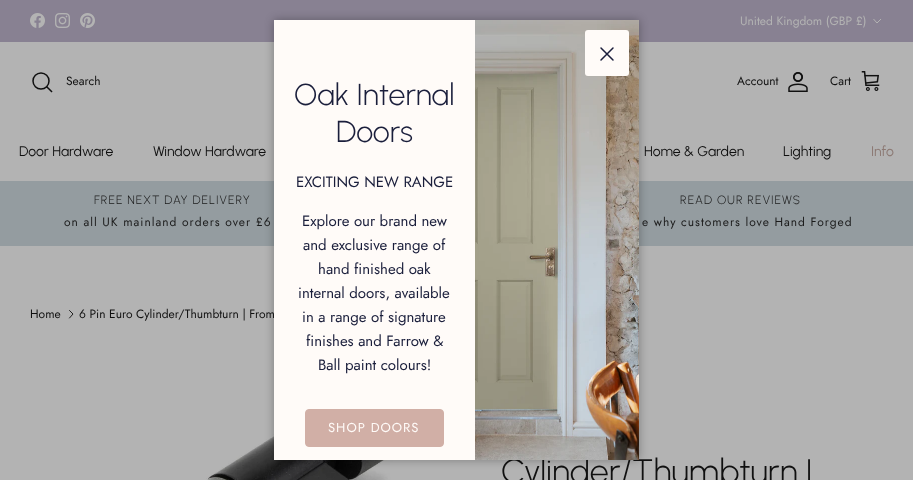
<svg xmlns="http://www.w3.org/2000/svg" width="913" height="480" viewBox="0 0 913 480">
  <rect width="100%" height="100%" fill="#b3b3b3"/>
  <path d="M0 0h913v42H0z" fill="#888192"/>
  <image x="30" y="13" width="15" height="15" href="img/1.png"/>
  <image x="55" y="13" width="15" height="15" href="img/2.png"/>
  <image x="80" y="13" width="15" height="15" href="img/3.png"/>
  <path d="M881 19L877 23L873.5 19" fill="none" stroke="#b3b3b3"/>
  <circle cx="41" cy="81" r="8" fill="none" stroke="#101010" stroke-width="1.5"/>
  <path d="M47 87L51.5 91.5" fill="none" stroke="#101010" stroke-width="1.5" stroke-linecap="square"/>
  <image x="788" y="72" width="20" height="20" href="img/4.png"/>
  <image x="861" y="71" width="19" height="20" href="img/5.png"/>
  <path d="M0 181h913v65H0z" fill="#949ca0"/>
  <image x="206" y="402" width="187" height="78" href="img/7.png"/>
  <path d="M274 20h365v440H274z" fill="#0000004d" filter="blur(5px)"/>
  <path d="M69.5 318L73 314L69.5 310.5" fill="none" stroke="#101010" stroke-width="0.9" stroke-linecap="round" stroke-linejoin="round"/>
  <text x="740" y="25" font-family="Jost" font-size="12" fill="#b3b3b3">United Kingdom (GBP £)</text>
  <g font-family="Jost" font-size="12" fill="#101010">
    <text x="66" y="85">Search</text>
    <text x="737" y="85">Account</text>
    <text x="830" y="85">Cart</text>
  </g>
  <g font-family="Urbanist" font-size="14" fill="#101010">
    <text x="19" y="156">Door Hardware</text>
    <text x="153" y="156">Window Hardware</text>
    <text x="644" y="156">Home &amp; Garden</text>
    <text x="783" y="156">Lighting</text>
  </g>
  <text x="871" y="156" font-family="Urbanist" font-size="14" fill="#8b7872">Info</text>
  <text x="94" y="204" font-family="Urbanist" font-size="12" font-weight="300" letter-spacing="1" fill="#1b1b1b">FREE NEXT DAY DELIVERY</text>
  <text x="64" y="226" font-family="Jost" font-size="12" letter-spacing="1" fill="#1b1b1b">on all UK mainland orders over £6</text>
  <text x="680" y="204" font-family="Urbanist" font-size="12" font-weight="300" letter-spacing="1" fill="#1b1b1b">READ OUR REVIEWS</text>
  <text x="642" y="226" font-family="Jost" font-size="12" letter-spacing="1" fill="#1b1b1b">e why customers love Hand Forged</text>
  <g font-family="Jost" font-size="12" fill="#101010">
    <text x="30" y="318">Home</text>
    <text x="79" y="318">6 Pin Euro Cylinder/Thumbturn | From</text>
  </g>
  <text x="501" y="483" font-family="Urbanist" font-size="34" font-weight="300" fill="#101010">Cylinder/Thumbturn |</text>
  <path d="M274 20h365v440H274z" fill="#fffbf8"/>
  <image x="475" y="20" width="164" height="440" href="img/6.png"/>
  <rect x="585" y="30" width="44" height="46" rx="3" fill="#fffbf8"/>
  <path d="M613 48L601 60M601 48L613 60" fill="none" stroke="#1a1e3b" stroke-width="1.5" stroke-linecap="round" stroke-linejoin="round"/>
  <rect x="305.5" y="409.5" width="138" height="37" rx="3.5" fill="#d1afa6" stroke="#d1afa6"/>
  <text x="328" y="432" font-family="Jost" font-size="13" letter-spacing="1" fill="#fffbf8">SHOP DOORS</text>
  <g font-family="Jost" font-size="15" fill="#1a1e3b">
    <text x="318" y="370">Ball paint colours!</text>
    <text x="306" y="346">finishes and Farrow &amp;</text>
    <text x="302" y="322">in a range of signature</text>
    <text x="298" y="298">internal doors, available</text>
    <text x="318" y="274">hand finished oak</text>
    <text x="303" y="250">and exclusive range of</text>
    <text x="302" y="226">Explore our brand new</text>
    <text x="296" y="187">EXCITING NEW RANGE</text>
  </g>
  <g font-family="Urbanist" font-size="30.25" font-weight="300" fill="#1a1e3b">
    <text x="336" y="142">Doors</text>
    <text x="294" y="105">Oak Internal</text>
  </g>
</svg>
